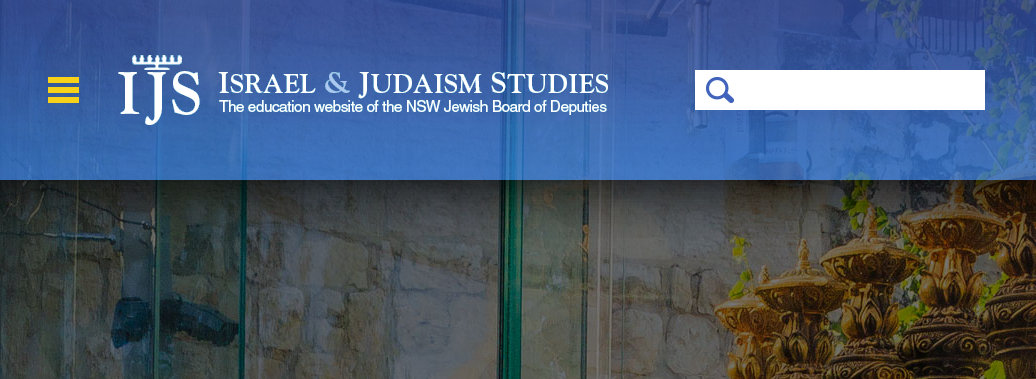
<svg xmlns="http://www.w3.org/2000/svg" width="1036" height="379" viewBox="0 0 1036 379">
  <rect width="100%" height="100%" fill="#fff"/>
  <image x="0" y="0" width="1036" height="379" href="img/1.png"/>
  <image x="0" y="0" width="1036" height="238" href="img/2.png"/>
  <image x="48" y="77" width="31" height="26" href="img/3.png"/>
  <image x="118" y="55" width="490" height="70" href="img/4.png"/>
  <path d="M695 70h290v40H695z" fill="#fff"/>
  <image x="706" y="77" width="28" height="26" href="img/5.png"/>
</svg>
